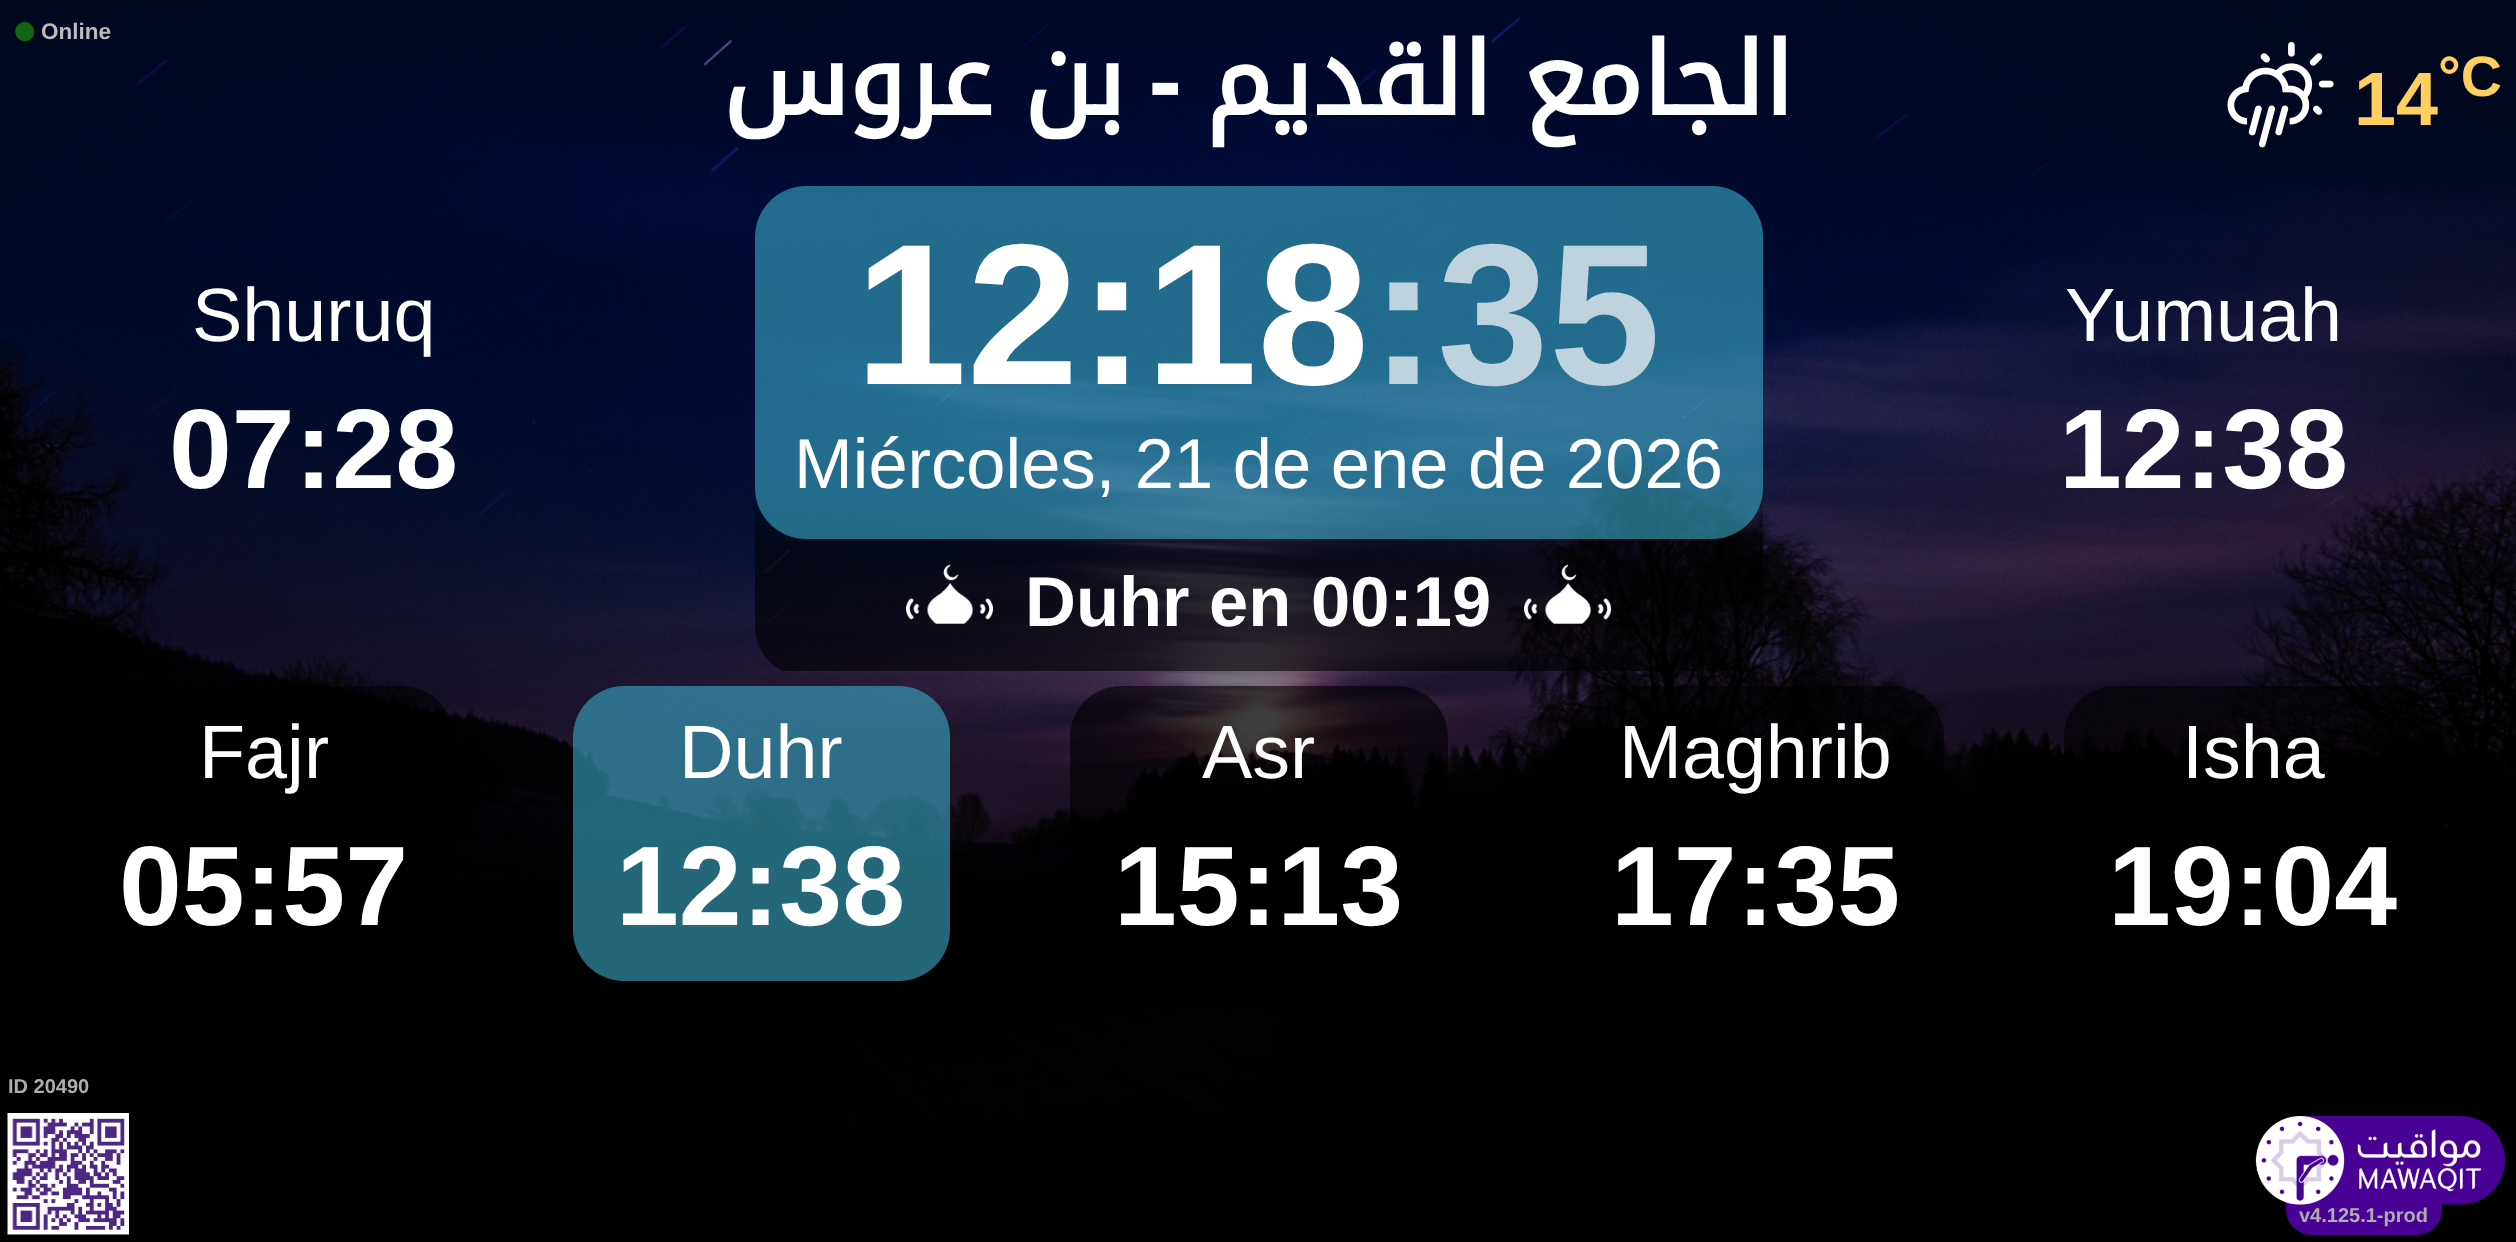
<svg xmlns="http://www.w3.org/2000/svg" width="2516" height="1242" viewBox="0 0 2516 1242">
  <rect width="100%" height="100%" fill="#fff"/>
  <image x="0" y="0" width="2516" height="1242" href="img/1.png"/>
  <path d="M18 25C27 16 40 29.5 31.5 38.5C22.5 47 9.5 34 18 25Z" fill="#126611"/>
  <image x="2227" y="41" width="107" height="107" href="img/2.png"/>
  <rect x="755" y="186" width="1008" height="353" rx="51" fill="#3babc999"/>
  <image x="906" y="564" width="87" height="60" href="img/3.png"/>
  <image x="1524" y="564" width="87" height="60" href="img/4.png"/>
  <rect x="75" y="686" width="378" height="295" rx="51" fill="#00000099"/>
  <rect x="573" y="686" width="377" height="295" rx="51" fill="#3babc999"/>
  <rect x="1070" y="686" width="378" height="295" rx="51" fill="#00000099"/>
  <rect x="1568" y="686" width="376" height="295" rx="51" fill="#00000099"/>
  <rect x="2064" y="686" width="378" height="295" rx="51" fill="#00000099"/>
  <image x="7" y="1113" width="122" height="122" href="img/5.png"/>
  <path d="M2286 1196H2442V1209C2442 1223.5 2430.5 1235 2416 1235H2312C2297.5 1235 2286 1223.5 2286 1209Z" fill="#490094"/>
  <image x="2255" y="1116" width="250" height="89" href="img/6.png"/>
  <text x="41" y="39" font-family="Liberation Sans" font-size="22.5" font-weight="bold" fill="#bdbbbb">Online</text>
  <text x="1124" y="115" word-spacing="-3" font-family="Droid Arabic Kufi" font-size="100.75" font-weight="bold" direction="rtl" fill="#fff">بن عروس</text>
  <text x="1182" y="115" font-family="Liberation Sans" font-size="100.75" font-weight="bold" direction="rtl" fill="#fff">-</text>
  <text x="1793" y="115" word-spacing="-3" font-family="Droid Arabic Kufi" font-size="100.75" font-weight="bold" direction="rtl" fill="#fff">الجامع القديم</text>
  <text x="2354" y="125" font-family="Liberation Sans" font-size="75.5" font-weight="bold" fill="#ffd05f">14</text>
  <text x="2438" y="96" font-family="Liberation Sans" font-size="57" font-weight="bold" fill="#ffd05f">°C</text>
  <text x="192" y="341" font-family="Liberation Sans" font-size="75.5" fill="#fff">Shuruq</text>
  <text x="169" y="488" font-family="Liberation Sans" font-size="113" font-weight="bold" fill="#fff">07:28</text>
  <text x="855" y="384" font-family="Liberation Sans" font-size="201" font-weight="bold" fill="#fff">12:18</text>
  <text x="1370" y="384" font-family="Liberation Sans" font-size="201" font-weight="bold" fill="#bed3dd">:35</text>
  <text x="794" y="488" font-family="Liberation Sans" font-size="70.5" fill="#fff">Miércoles, 21 de ene de 2026</text>
  <text x="1025" y="626" font-family="Liberation Sans" font-size="70.5" font-weight="bold" fill="#fff">Duhr en 00:19</text>
  <text x="2065" y="341" font-family="Liberation Sans" font-size="75.5" fill="#fff">Yumuah</text>
  <text x="2059" y="488" font-family="Liberation Sans" font-size="113" font-weight="bold" fill="#fff">12:38</text>
  <text x="199" y="778" font-family="Liberation Sans" font-size="75.5" fill="#fff">Fajr</text>
  <text x="119" y="925" font-family="Liberation Sans" font-size="113" font-weight="bold" fill="#fff">05:57</text>
  <text x="679" y="778" font-family="Liberation Sans" font-size="75.5" fill="#fff">Duhr</text>
  <text x="616" y="925" font-family="Liberation Sans" font-size="113" font-weight="bold" fill="#fff">12:38</text>
  <text x="1202" y="778" font-family="Liberation Sans" font-size="75.5" fill="#fff">Asr</text>
  <text x="1114" y="925" font-family="Liberation Sans" font-size="113" font-weight="bold" fill="#fff">15:13</text>
  <text x="1619" y="778" font-family="Liberation Sans" font-size="75.5" fill="#fff">Maghrib</text>
  <text x="1611" y="925" font-family="Liberation Sans" font-size="113" font-weight="bold" fill="#fff">17:35</text>
  <text x="2182" y="778" font-family="Liberation Sans" font-size="75.5" fill="#fff">Isha</text>
  <text x="2108" y="925" font-family="Liberation Sans" font-size="113" font-weight="bold" fill="#fff">19:04</text>
  <g font-family="Liberation Sans" font-size="20" font-weight="bold" fill="#adadad">
    <text x="8" y="1093">ID 20490</text>
    <text x="2299" y="1222">v4.125.1-prod</text>
  </g>
</svg>
